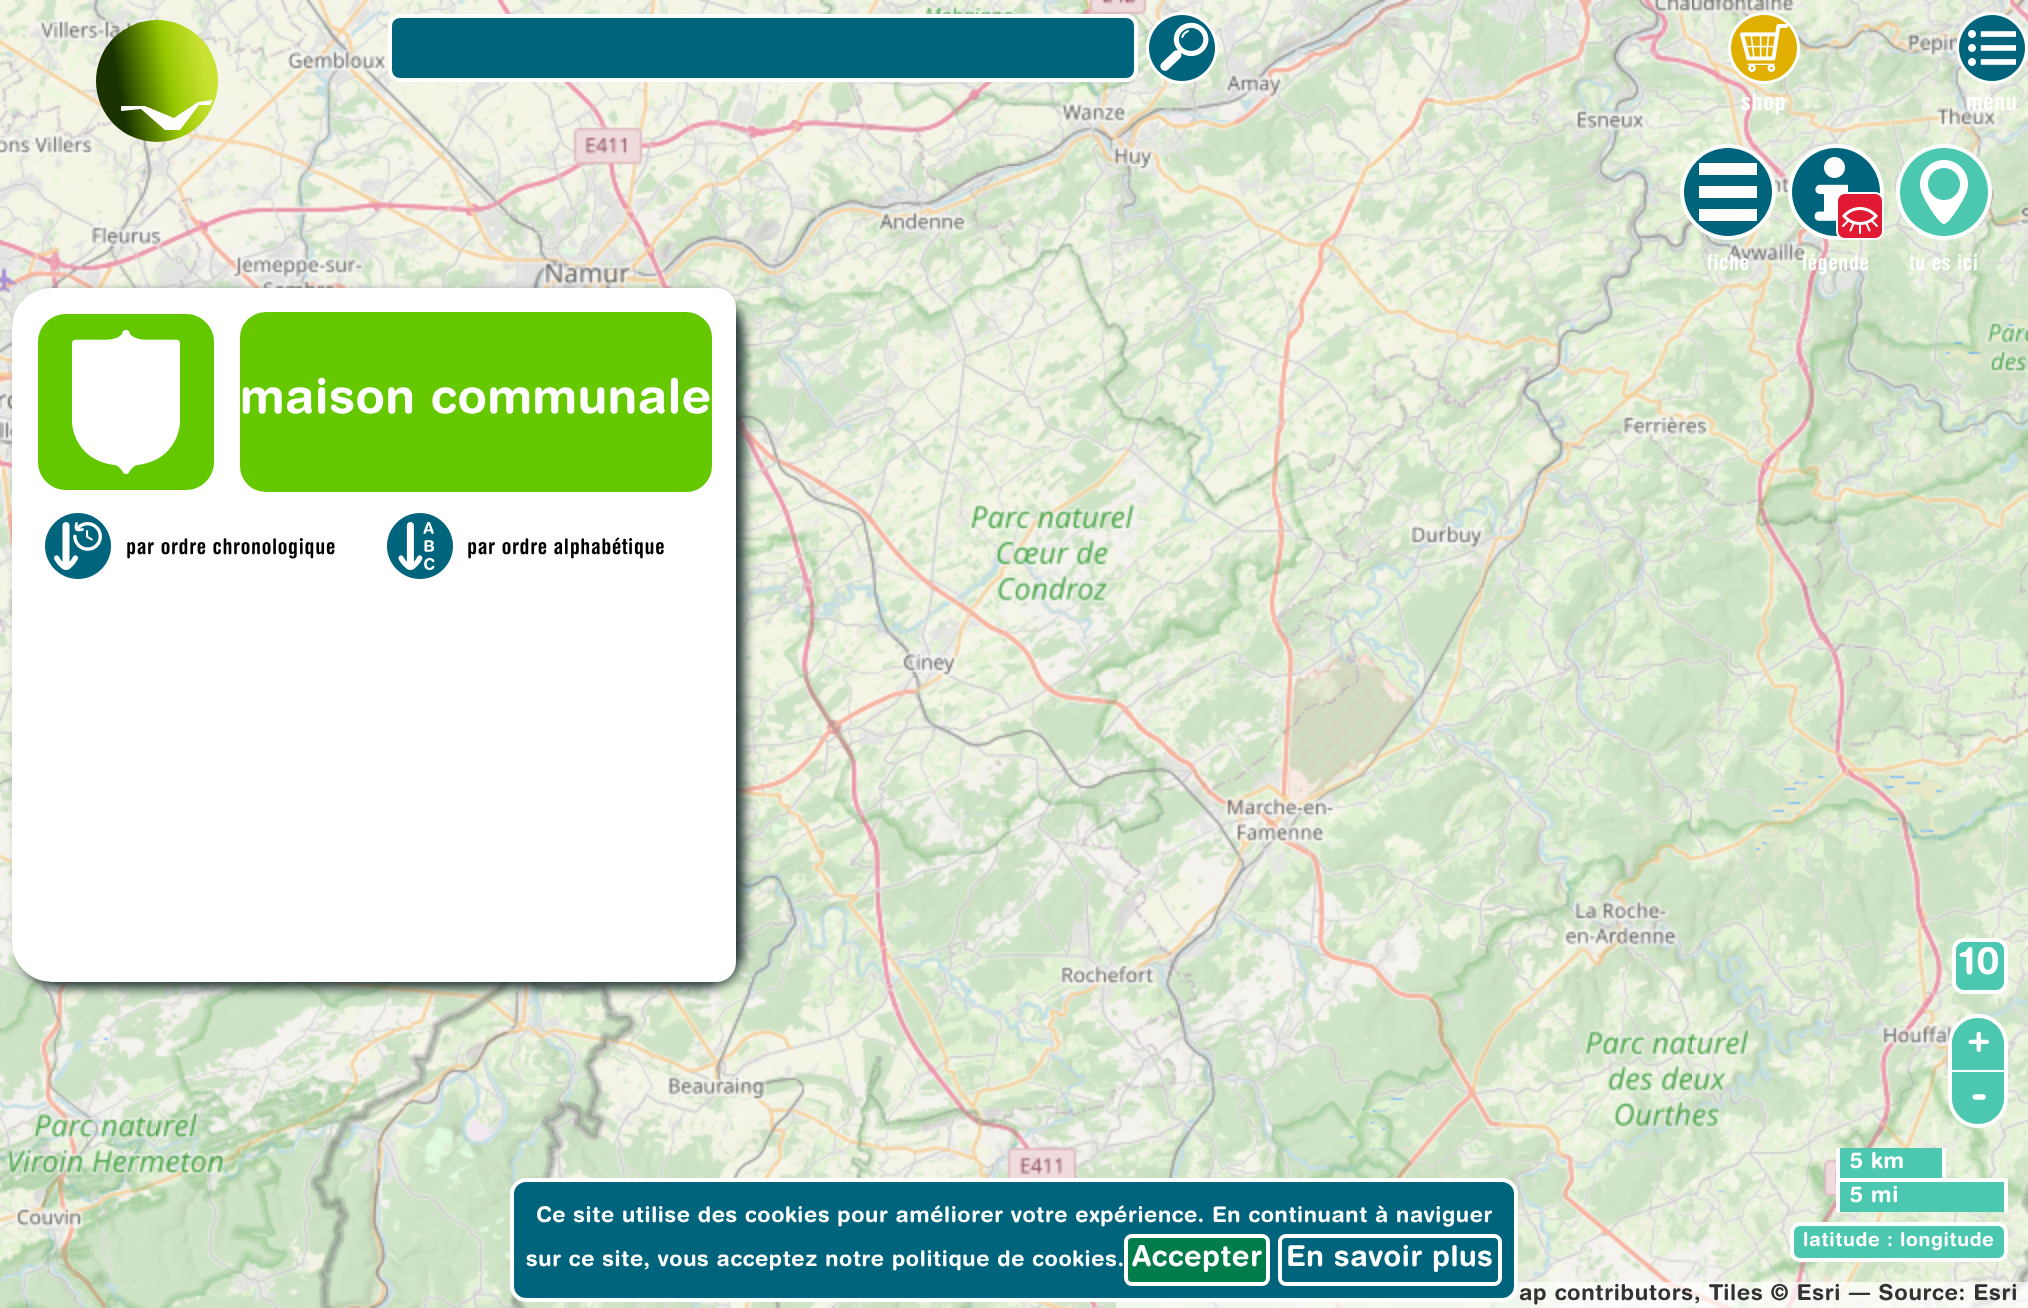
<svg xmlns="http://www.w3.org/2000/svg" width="2028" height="1308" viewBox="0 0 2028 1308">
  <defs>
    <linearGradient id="g1" gradientUnits="userSpaceOnUse" x1="220" y1="70" x2="119" y2="88"><stop offset="0.15" stop-color="#c8e132"/><stop offset="0.38" stop-color="#a9d113"/><stop offset="0.5" stop-color="#96c800"/><stop offset="1" stop-color="#193200"/></linearGradient>
  </defs>
  <rect width="100%" height="100%" fill="#fff"/>
  <image x="0" y="0" width="156" height="166" href="img/9.png"/>
  <image x="156" y="0" width="512" height="166" href="img/10.png"/>
  <image x="0" y="0" width="156" height="166" href="img/29.png"/>
  <image x="156" y="0" width="512" height="166" href="img/30.png"/>
  <circle cx="157" cy="81" r="61" fill="url(#g1)"/>
  <path d="M198 102L174 118L145 106H121V111L141 109L165 130H180L199 105H210L213 100Z" fill="#fff"/>
  <image x="668" y="0" width="512" height="166" href="img/11.png"/>
  <image x="668" y="0" width="512" height="166" href="img/31.png"/>
  <rect x="390" y="16" width="746" height="64" rx="10" fill="#00647d" stroke="#fff" stroke-width="4"/>
  <image x="1180" y="0" width="512" height="166" href="img/12.png"/>
  <image x="1180" y="0" width="512" height="166" href="img/32.png"/>
  <image x="1146" y="12" width="72" height="72" href="img/1.png"/>
  <image x="1692" y="0" width="336" height="166" href="img/13.png"/>
  <image x="1692" y="0" width="336" height="166" href="img/33.png"/>
  <image x="1728" y="12" width="72" height="72" href="img/2.png"/>
  <image x="1956" y="12" width="72" height="72" href="img/3.png"/>
  <image x="156" y="982" width="512" height="208" href="img/20.png"/>
  <image x="1180" y="678" width="512" height="512" href="img/22.png"/>
  <image x="156" y="1190" width="512" height="118" href="img/25.png"/>
  <image x="1180" y="1190" width="512" height="118" href="img/27.png"/>
  <image x="156" y="982" width="512" height="208" href="img/40.png"/>
  <image x="1180" y="678" width="512" height="512" href="img/42.png"/>
  <image x="156" y="1190" width="512" height="118" href="img/45.png"/>
  <image x="1180" y="1190" width="512" height="118" href="img/47.png"/>
  <image x="668" y="1302" width="512" height="6" href="img/26.png"/>
  <image x="1692" y="1190" width="336" height="118" href="img/28.png"/>
  <image x="668" y="1302" width="512" height="6" href="img/46.png"/>
  <image x="1692" y="1190" width="336" height="118" href="img/48.png"/>
  <path d="M1116 1282h912v26H1116z" fill="#ffffffb3"/>
  <rect x="512" y="1180" width="1004" height="120" rx="14" fill="#00647d" stroke="#fff" stroke-width="4"/>
  <rect x="1126" y="1236" width="142" height="48" rx="6" fill="#007d4b" stroke="#fff" stroke-width="4"/>
  <rect x="1280" y="1236" width="220" height="48" rx="6" fill="none" stroke="#fff" stroke-width="4"/>
  <image x="1180" y="166" width="512" height="512" href="img/17.png"/>
  <image x="1692" y="166" width="336" height="512" href="img/18.png"/>
  <image x="1180" y="166" width="512" height="512" href="img/37.png"/>
  <image x="1692" y="166" width="336" height="512" href="img/38.png"/>
  <path d="M1728 144C1702 144 1680 166 1680 192C1680 218 1702 240 1728 240C1754 240 1776 218 1776 192C1776 166 1754 144 1728 144Z" fill="#fff"/>
  <path d="M1728 148C1704 148 1684 168 1684 192C1684 216 1704 236 1728 236C1752 236 1772 216 1772 192C1772 168 1752 148 1728 148Z" fill="#00647d"/>
  <path d="M1699 163h58v12H1699z" fill="#fff"/>
  <path d="M1699 186h58v12H1699z" fill="#fff"/>
  <path d="M1699 209h58v12H1699z" fill="#fff"/>
  <image x="1788" y="144" width="96" height="96" href="img/4.png"/>
  <image x="1896" y="144" width="96" height="96" href="img/5.png"/>
  <image x="0" y="166" width="156" height="512" href="img/14.png"/>
  <image x="156" y="166" width="512" height="122" href="img/15.png"/>
  <image x="668" y="166" width="512" height="512" href="img/16.png"/>
  <image x="0" y="678" width="156" height="512" href="img/19.png"/>
  <image x="668" y="678" width="512" height="500" href="img/21.png"/>
  <image x="0" y="166" width="156" height="512" href="img/34.png"/>
  <image x="156" y="166" width="512" height="122" href="img/35.png"/>
  <image x="668" y="166" width="512" height="512" href="img/36.png"/>
  <image x="0" y="678" width="156" height="512" href="img/39.png"/>
  <image x="668" y="678" width="512" height="500" href="img/41.png"/>
  <rect x="20" y="294" width="724" height="694" rx="40" fill="#233" filter="blur(6px)"/>
  <path d="M52 291H716C725.5 291 733 298.5 733 308V962C733 971.5 725.5 979 716 979H52C31.5 979 15 962.5 15 942V328C15 307.5 31.5 291 52 291Z" fill="#fff" stroke="#fff" stroke-width="6"/>
  <image x="38" y="314" width="176" height="176" href="img/6.png"/>
  <rect x="237" y="309" width="478" height="186" rx="29" fill="#66c800" stroke="#fff" stroke-width="6"/>
  <image x="45" y="513" width="66" height="66" href="img/7.png"/>
  <image x="387" y="513" width="66" height="66" href="img/8.png"/>
  <image x="1692" y="678" width="336" height="512" href="img/23.png"/>
  <image x="0" y="1190" width="156" height="118" href="img/24.png"/>
  <image x="1692" y="678" width="336" height="512" href="img/43.png"/>
  <image x="0" y="1190" width="156" height="118" href="img/44.png"/>
  <rect x="1954" y="940" width="52" height="52" rx="10" fill="#4bc8af" stroke="#fff" stroke-width="4"/>
  <rect x="1950" y="1016" width="56" height="110" rx="28" fill="none" stroke="#fff" stroke-width="4"/>
  <path d="M1978 1018C1992.5 1018 2004 1029.5 2004 1044V1072H1952V1044C1952 1029.5 1963.5 1018 1978 1018Z" fill="#4bc8af"/>
  <path d="M1952 1070h52v2H1952z" fill="#fff"/>
  <path d="M1952 1072H2004V1098C2004 1112.5 1992.5 1124 1978 1124C1963.5 1124 1952 1112.5 1952 1098Z" fill="#4bc8af"/>
  <path d="M1840 1148h102v30H1840z" fill="#4bc8af"/>
  <path d="M1942 1148h4v34H1942z" fill="#fff"/>
  <path d="M1836 1148h4v34H1836z" fill="#fff"/>
  <path d="M1840 1182h164v30H1840z" fill="#4bc8af"/>
  <path d="M1836 1178h172v4H1836z" fill="#fff"/>
  <path d="M2004 1178h4v34H2004z" fill="#fff"/>
  <path d="M1836 1178h4v34H1836z" fill="#fff"/>
  <rect x="1792" y="1224" width="214" height="36" rx="8" fill="#4bc8af" stroke="#fff" stroke-width="4"/>
  <g font-family="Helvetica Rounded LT" font-size="24" font-weight="bold" letter-spacing="0.67" fill="#fff">
    <text x="1741" y="110">shop</text>
    <text x="1966" y="110">menu</text>
  </g>
  <g font-family="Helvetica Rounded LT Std" font-size="21.6" font-weight="bold" letter-spacing="0.67" fill="#fff">
    <text x="536" y="1222" word-spacing="-0.1">Ce site utilise des cookies pour améliorer votre expérience. En continuant à naviguer</text>
    <text x="526" y="1266">sur ce site, vous acceptez notre politique de cookies.</text>
  </g>
  <g font-family="Helvetica Rounded LT Std" font-size="28.75" font-weight="bold" letter-spacing="0.67" fill="#fff">
    <text x="1132" y="1266">Accepter</text>
    <text x="1286" y="1266">En savoir plus</text>
  </g>
  <g font-family="Helvetica Rounded LT" font-size="21.6" font-weight="bold" letter-spacing="0.67" fill="#fff">
    <text x="1707" y="270">fiche</text>
    <text x="1802" y="270">légende</text>
    <text x="1909" y="270">tu es ici</text>
  </g>
  <text x="240" y="413" font-family="Helvetica Rounded LT Std" font-size="48" font-weight="bold" letter-spacing="0.67" fill="#fff">maison communale</text>
  <g font-family="Helvetica Rounded LT" font-size="21.6" font-weight="bold" letter-spacing="0.67" fill="#000">
    <text x="126" y="554">par ordre chronologique</text>
    <text x="467" y="554">par ordre alphabétique</text>
  </g>
  <text x="1960" y="974" font-family="Helvetica Rounded LT Std" font-size="38" font-weight="bold" letter-spacing="0.67" fill="#fff">10</text>
  <text x="1968" y="1052" font-family="Helvetica Rounded LT Std" font-size="36" font-weight="bold" letter-spacing="0.67" fill="#fff">+</text>
  <text x="1971" y="1108" font-family="Helvetica Rounded LT Std" font-size="40" font-weight="bold" letter-spacing="0.67" fill="#fff">-</text>
  <g font-family="Helvetica Rounded LT Std" font-size="22" font-weight="bold" letter-spacing="0.67" fill="#fff">
    <text x="1850" y="1168">5 km</text>
    <text x="1850" y="1202">5 mi</text>
  </g>
  <text x="1803" y="1246" font-family="Helvetica Rounded LT Std" font-size="19.25" font-weight="bold" letter-spacing="0.67" fill="#fff">latitude : longitude</text>
  <text x="1519" y="1300" font-family="Helvetica Rounded LT Std" font-size="22" font-weight="bold" letter-spacing="0.67" fill="#333">ap contributors, Tiles © Esri — Source: Esri</text>
</svg>
